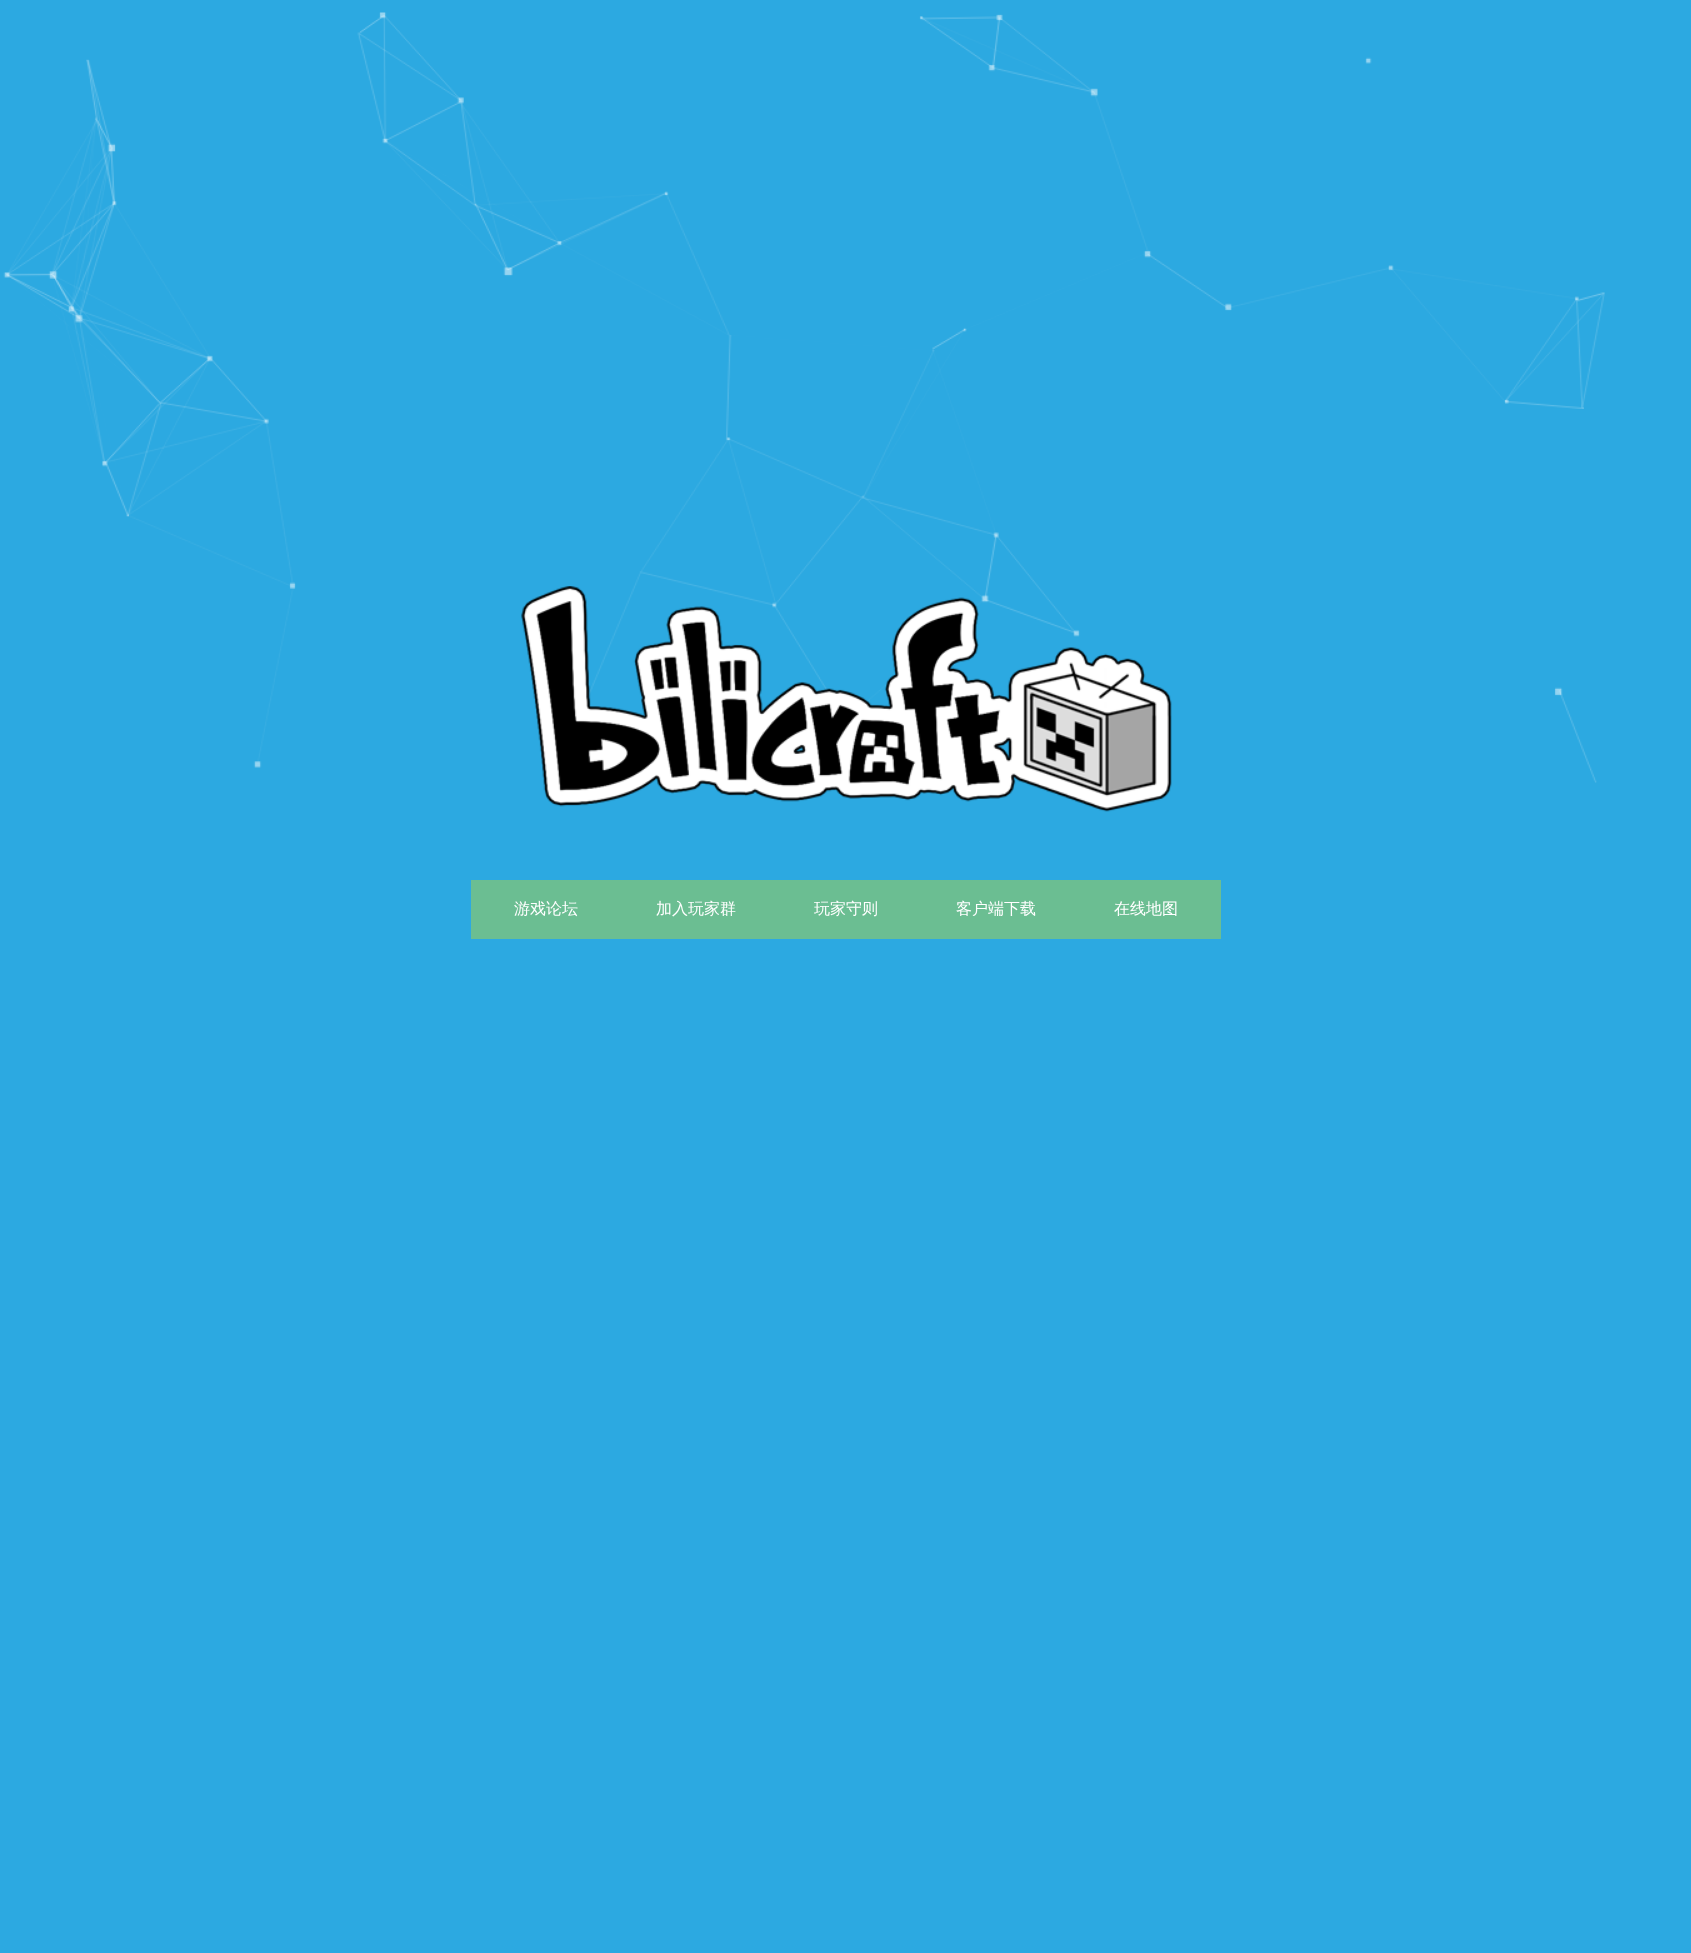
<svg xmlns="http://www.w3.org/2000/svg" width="1691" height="1953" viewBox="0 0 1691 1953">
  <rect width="100%" height="100%" fill="#2ca9e1"/>
  <image x="3" y="12" width="1602" height="771" href="img/1.png"/>
  <image x="521" y="586" width="651" height="226" href="img/2.png"/>
  <path d="M471 880h750v59H471z" fill="#6bbe92"/>
  <g font-family="WenQuanYi Zen Hei" font-size="16" font-weight="500" fill="#fff">
    <text x="514" y="914">游戏论坛</text>
    <text x="656" y="914">加入玩家群</text>
    <text x="814" y="914">玩家守则</text>
    <text x="956" y="914">客户端下载</text>
    <text x="1114" y="914">在线地图</text>
  </g>
</svg>
